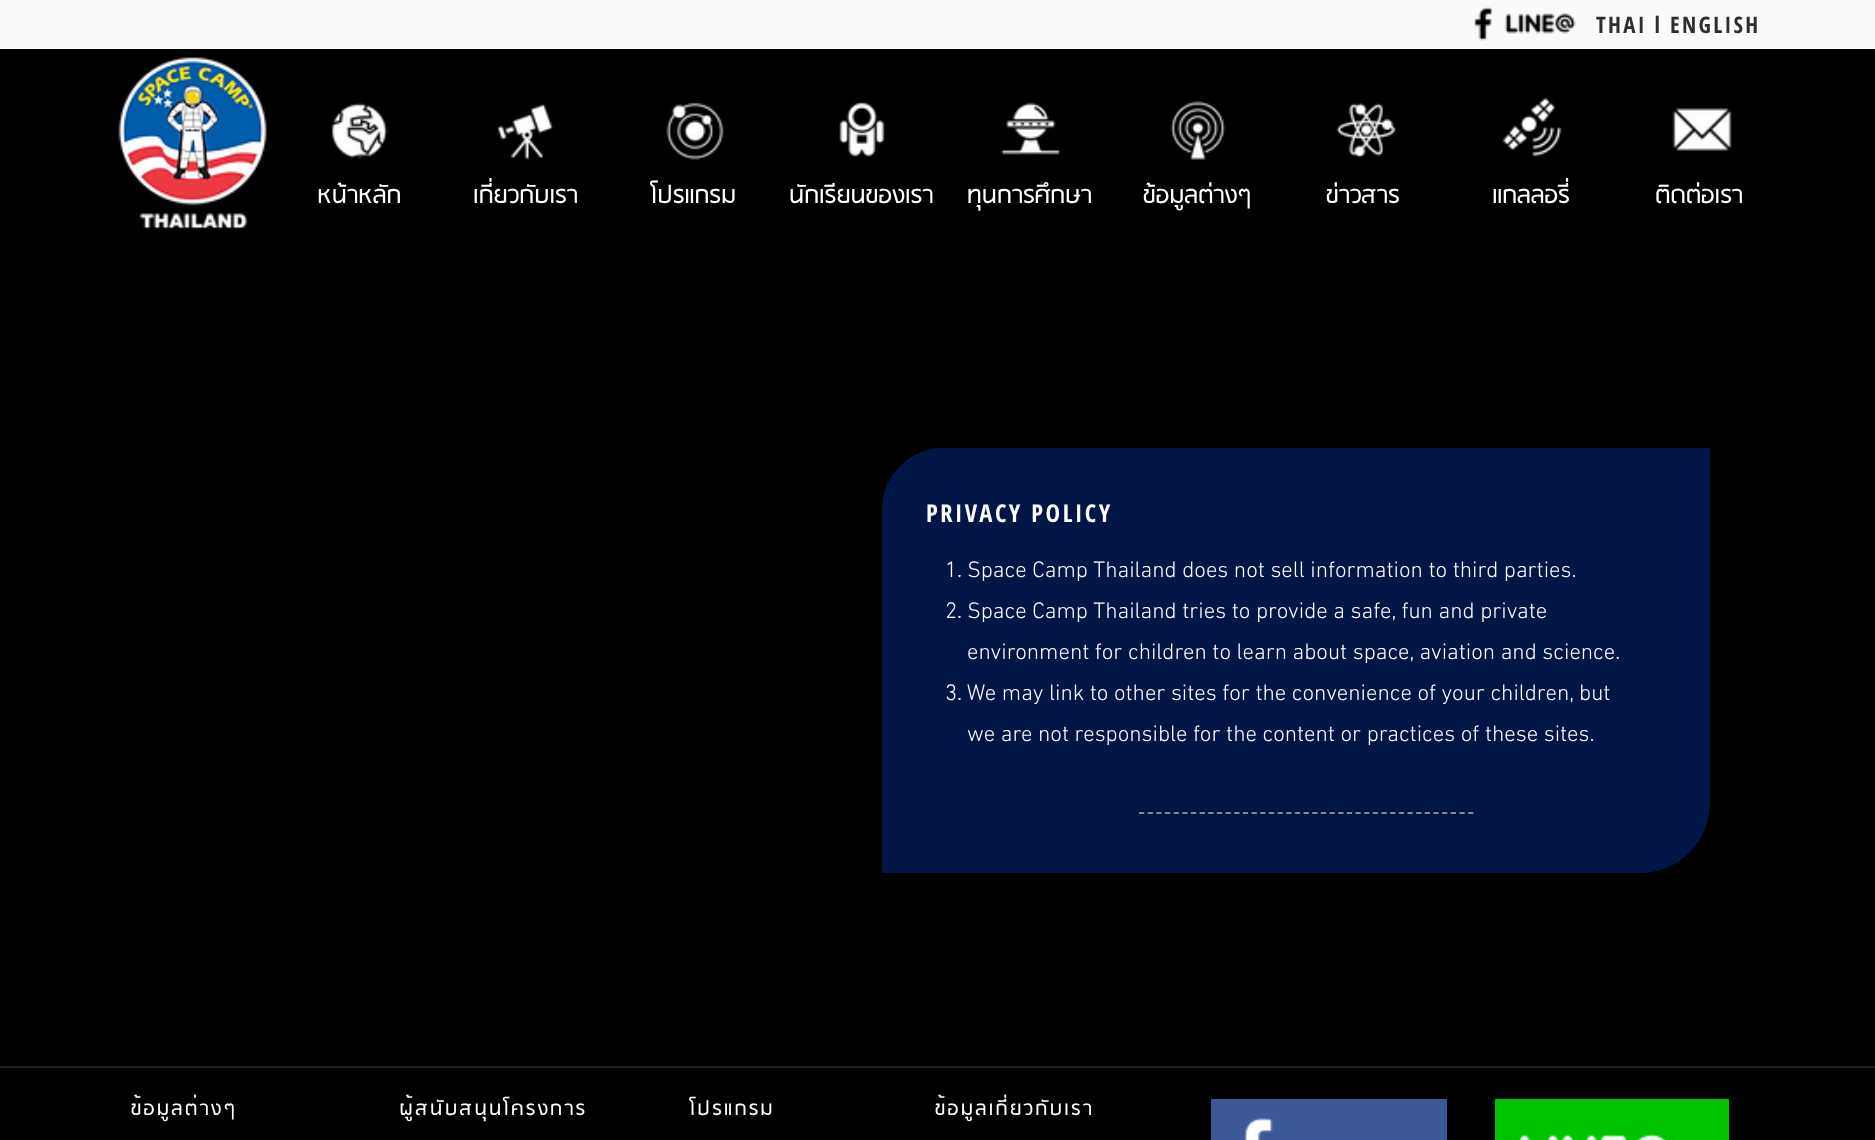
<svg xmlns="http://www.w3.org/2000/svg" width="1875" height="1140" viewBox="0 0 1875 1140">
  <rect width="100%" height="100%" fill="#000"/>
  <path d="M0 0h1875v49H0z" fill="#fafafa"/>
  <image x="1473" y="7" width="20" height="34" href="img/1.png"/>
  <image x="1504" y="13" width="72" height="21" href="img/2.png"/>
  <image x="118" y="57" width="149" height="173" href="img/3.png"/>
  <image x="331" y="103" width="57" height="57" href="img/4.png"/>
  <image x="497" y="104" width="57" height="56" href="img/5.png"/>
  <image x="666" y="102" width="58" height="58" href="img/6.png"/>
  <image x="839" y="101" width="46" height="56" href="img/7.png"/>
  <image x="1000" y="102" width="61" height="53" href="img/8.png"/>
  <image x="1170" y="101" width="56" height="59" href="img/9.png"/>
  <image x="1336" y="103" width="60" height="55" href="img/10.png"/>
  <image x="1502" y="97" width="60" height="60" href="img/11.png"/>
  <image x="1672" y="108" width="60" height="43" href="img/12.png"/>
  <path d="M943 448H1710V803C1710 841.5 1678.5 873 1640 873H882V509C882 475.5 909.5 448 943 448Z" fill="#001646"/>
  <path d="M1139 811H1473.5" fill="none" stroke="#000e2e" stroke-width="1.8" stroke-dasharray="5.25 3.41"/>
  <path d="M1139 813H1473.5" fill="none" stroke="#808ba3" stroke-width="1.8" stroke-dasharray="5.25 3.41"/>
  <path d="M0 1066h1875v2H0z" fill="#202020"/>
  <path d="M1211 1099h236v41H1211z" fill="#3b5998"/>
  <image x="1244" y="1118" width="29" height="22" href="img/13.png"/>
  <path d="M1495 1099h234v41H1495z" fill="#00c300"/>
  <image x="1518" y="1133" width="149" height="7" href="img/14.png"/>
  <text x="1596" y="33" font-family="Open Sans Condensed" font-size="22.75" font-weight="bold" letter-spacing="2.25" fill="#2f2e2e">THAI l ENGLISH</text>
  <g font-family="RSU" font-size="28" fill="#fff">
    <text x="317" y="203">หน้าหลัก</text>
    <text x="473" y="203">เกี่ยวกับเรา</text>
    <text x="651" y="203">โปรแกรม</text>
    <text x="789" y="203">นักเรียนของเรา</text>
    <text x="967" y="203">ทุนการศึกษา</text>
    <text x="1143" y="203">ข้อมูลต่างๆ</text>
    <text x="1326" y="203">ข่าวสาร</text>
    <text x="1492" y="203">แกลลอรี่</text>
    <text x="1655" y="203">ติดต่อเรา</text>
  </g>
  <text x="926" y="522" font-family="Open Sans Condensed" font-size="24.5" font-weight="bold" letter-spacing="2.5" fill="#fff">PRIVACY POLICY</text>
  <g font-family="'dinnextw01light'" font-size="22.75" font-weight="300" fill="#fff">
    <text x="945" y="577">1. Space Camp Thailand does not sell information to third parties.</text>
    <text x="945" y="618">2. Space Camp Thailand tries to provide a safe, fun and private</text>
    <text x="967" y="659">environment for children to learn about space, aviation and science.</text>
    <text x="945" y="700">3. We may link to other sites for the convenience of your children, but</text>
    <text x="967" y="741">we are not responsible for the content or practices of these sites.</text>
  </g>
  <g font-family="RSU" font-size="22.75" letter-spacing="2.25" fill="#fff">
    <text x="131" y="1115">ข้อมูลต่างๆ</text>
    <text x="399" y="1115">ผู้สนับสนุนโครงการ</text>
    <text x="690" y="1115">โปรแกรม</text>
    <text x="935" y="1115">ข้อมูลเกี่ยวกับเรา</text>
  </g>
</svg>
